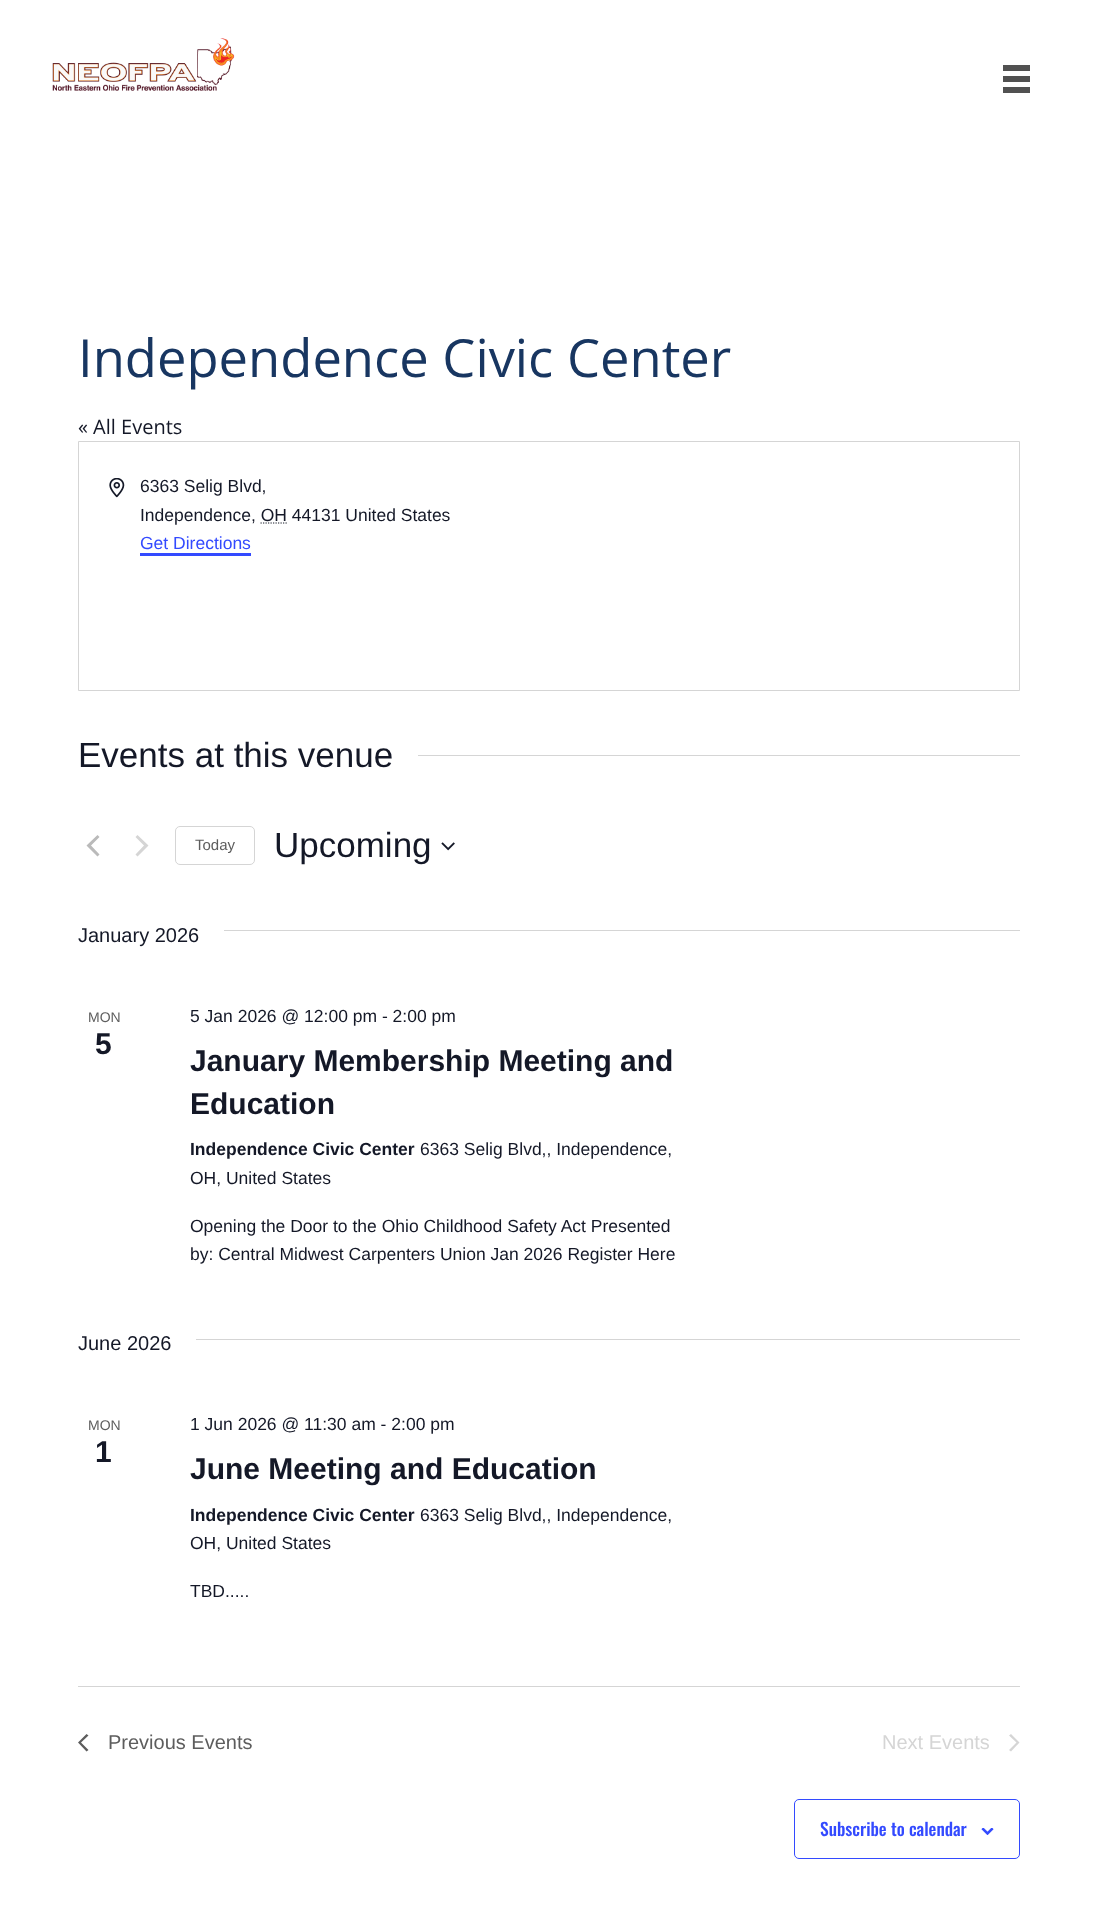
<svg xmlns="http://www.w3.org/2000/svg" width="1097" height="1922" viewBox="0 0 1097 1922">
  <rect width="100%" height="100%" fill="#fff"/>
  <image x="52" y="38" width="183" height="53" href="img/1.png"/>
  <path d="M1003 65h27v6H1003z" fill="#515151"/>
  <path d="M1003 76h27v6H1003z" fill="#515151"/>
  <path d="M1003 87h27v6H1003z" fill="#515151"/>
  <path d="M78.5 441.5h941v249H78.5z" fill="none" stroke="#d5d5d5"/>
  <image x="109" y="478" width="16" height="20" href="img/2.png"/>
  <path d="M260.5 523H287" fill="none" stroke="#141827" stroke-width="1.2" stroke-dasharray="1.25 1.25"/>
  <path d="M140 553h111v3H140z" fill="#334aff"/>
  <path d="M418 755h602v1H418z" fill="#d5d5d5"/>
  <path d="M99.5 854.5L97.5 856.5L86.5 845.5L97.5 835L99.5 837L91 845.5Z" fill="#bababa"/>
  <path d="M135.5 837L137.5 835L148.5 845.5L137.5 856.5L135.5 854.5L144 845.5Z" fill="#d5d5d5"/>
  <rect x="175.5" y="826.5" width="79" height="38" rx="4.5" fill="none" stroke="#d5d5d5"/>
  <image x="441" y="842" width="14" height="9" href="img/3.png"/>
  <path d="M224 930h796v1H224z" fill="#d5d5d5"/>
  <path d="M196 1339h824v1H196z" fill="#d5d5d5"/>
  <path d="M78 1686h942v1H78z" fill="#d5d5d5"/>
  <path d="M88.5 1750L86.5 1751.5L78 1742.5L86.5 1734L88.5 1735.5L81 1742.5Z" fill="#5d5d5d"/>
  <path d="M1009 1735.5L1011 1734L1019.5 1742.5L1011 1751.5L1009 1750L1016.5 1742.5Z" fill="#d5d5d5"/>
  <rect x="794.5" y="1799.5" width="225" height="59" rx="4.5" fill="none" stroke="#334aff"/>
  <image x="981" y="1828" width="13" height="7" href="img/4.png"/>
  <text x="78" y="377" font-family="Open Sans" font-size="52.5" fill="#183661">Independence Civic Center</text>
  <text x="78" y="434" font-family="Open Sans" font-size="20" fill="#141827">« All Events</text>
  <g font-family="Liberation Sans" font-size="17.5" fill="#141827">
    <text x="140" y="492">6363 Selig Blvd,</text>
    <text x="140" y="521">Independence, OH 44131 United States</text>
  </g>
  <text x="140" y="549" font-family="Liberation Sans" font-size="17.5" fill="#334aff">Get Directions</text>
  <text x="78" y="767" font-family="Liberation Sans" font-size="35" fill="#141827">Events at this venue</text>
  <text x="195" y="850" font-family="Liberation Sans" font-size="15" fill="#5d5d5d">Today</text>
  <text x="274" y="857" font-family="Liberation Sans" font-size="35" fill="#141827">Upcoming</text>
  <text x="78" y="942" font-family="Liberation Sans" font-size="20" fill="#141827">January 2026</text>
  <text x="88" y="1022" font-family="Liberation Sans" font-size="14" fill="#5d5d5d">MON</text>
  <text x="95" y="1054" font-family="Liberation Sans" font-size="30" font-weight="bold" fill="#141827">5</text>
  <text x="190" y="1022" font-family="Liberation Sans" font-size="17.5" fill="#141827">5 Jan 2026 @ 12:00 pm - 2:00 pm</text>
  <g font-family="Liberation Sans" font-size="30" font-weight="bold" fill="#141827">
    <text x="190" y="1071">January Membership Meeting and</text>
    <text x="190" y="1114">Education</text>
  </g>
  <text x="190" y="1155" font-family="Liberation Sans" font-size="17.5" font-weight="bold" fill="#141827">Independence Civic Center</text>
  <g font-family="Liberation Sans" font-size="17.5" fill="#141827">
    <text x="420" y="1155">6363 Selig Blvd,, Independence,</text>
    <text x="190" y="1184">OH, United States</text>
    <text x="190" y="1232">Opening the Door to the Ohio Childhood Safety Act Presented</text>
    <text x="190" y="1260">by: Central Midwest Carpenters Union Jan 2026 Register Here</text>
  </g>
  <text x="78" y="1350" font-family="Liberation Sans" font-size="20" fill="#141827">June 2026</text>
  <text x="88" y="1430" font-family="Liberation Sans" font-size="14" fill="#5d5d5d">MON</text>
  <text x="95" y="1462" font-family="Liberation Sans" font-size="30" font-weight="bold" fill="#141827">1</text>
  <text x="190" y="1430" font-family="Liberation Sans" font-size="17.5" fill="#141827">1 Jun 2026 @ 11:30 am - 2:00 pm</text>
  <text x="190" y="1479" font-family="Liberation Sans" font-size="30" font-weight="bold" fill="#141827">June Meeting and Education</text>
  <text x="190" y="1521" font-family="Liberation Sans" font-size="17.5" font-weight="bold" fill="#141827">Independence Civic Center</text>
  <g font-family="Liberation Sans" font-size="17.5" fill="#141827">
    <text x="420" y="1521">6363 Selig Blvd,, Independence,</text>
    <text x="190" y="1549">OH, United States</text>
    <text x="190" y="1597">TBD.....</text>
  </g>
  <text x="108" y="1749" font-family="Liberation Sans" font-size="20" fill="#5d5d5d">Previous Events</text>
  <text x="882" y="1749" font-family="Liberation Sans" font-size="20" fill="#d5d5d5">Next Events</text>
  <text x="820" y="1836" font-family="Oswald" font-size="17.5" font-weight="500" fill="#334aff">Subscribe to calendar</text>
</svg>
